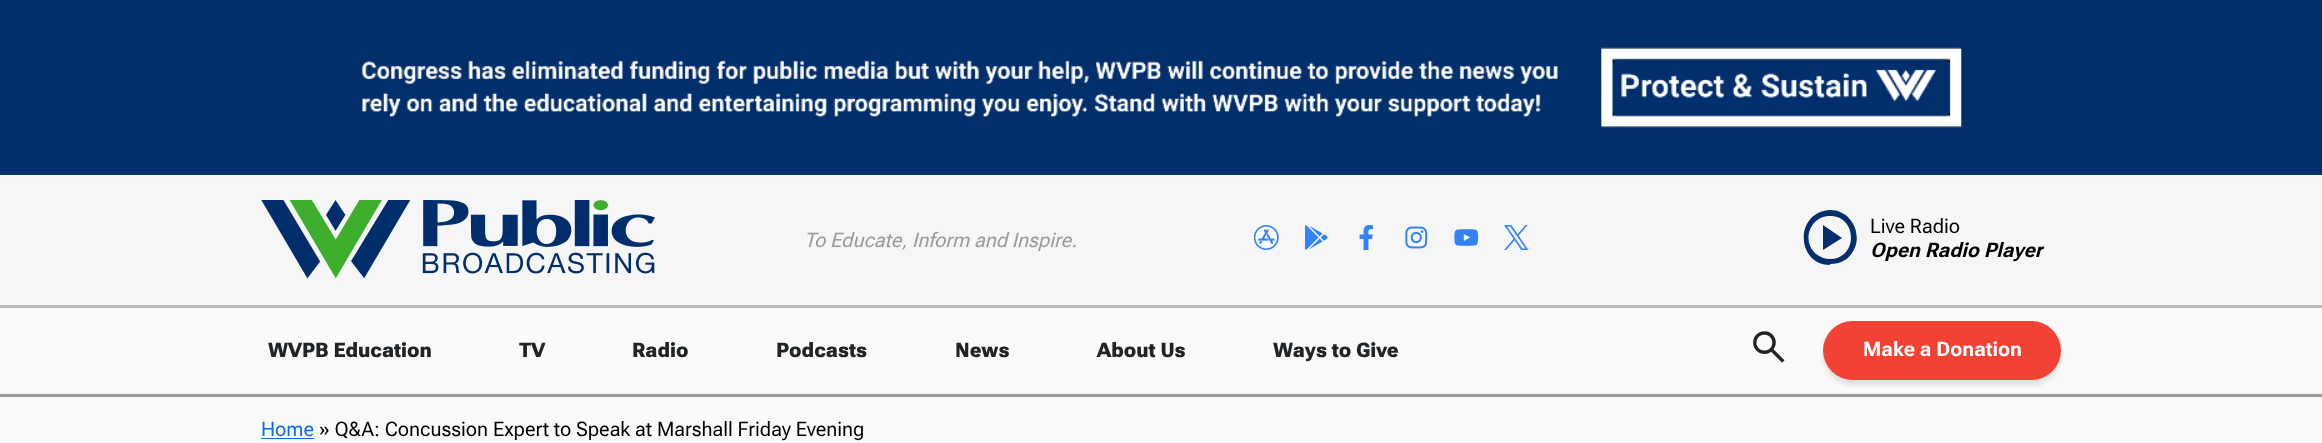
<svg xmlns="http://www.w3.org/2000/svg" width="2322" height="443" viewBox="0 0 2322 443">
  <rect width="100%" height="100%" fill="#fafafa"/>
  <path d="M0 394h2322v3H0z" fill="#999"/>
  <path d="M0 0h2322v175H0z" fill="#002f6c"/>
  <image x="361" y="47" width="1601" height="81" href="img/1.png"/>
  <path d="M0 175h2322v130H0z" fill="#f6f6f6"/>
  <path d="M0 305h2322v3H0z" fill="#bdbdbd"/>
  <image x="261" y="200" width="394" height="79" href="img/2.png"/>
  <image x="1254" y="225" width="25" height="25" href="img/3.png"/>
  <image x="1305" y="225" width="23" height="25" href="img/4.png"/>
  <image x="1359" y="225" width="14" height="25" href="img/5.png"/>
  <image x="1405" y="226" width="23" height="23" href="img/6.png"/>
  <image x="1454" y="229" width="25" height="17" href="img/7.png"/>
  <image x="1504" y="225" width="25" height="25" href="img/8.png"/>
  <path d="M1823 250L1842 238L1823 225ZM1830 265C1796 265 1794 212 1830 210C1856 210 1867 245 1845 260C1840 263 1835 264 1830 264ZM1830 259C1858 259 1858 216 1830 216C1810 216 1801 241 1816 254C1820 257 1825 259 1830 259Z" fill="#002f6c"/>
  <image x="1753" y="331" width="32" height="32" href="img/9.png"/>
  <rect x="1823" y="326" width="238" height="59" rx="29.5" fill="#2124271f" filter="blur(2.5px)"/>
  <rect x="1823" y="321" width="238" height="59" rx="29.5" fill="#f24236"/>
  <path d="M261 438h53v1H261z" fill="#096af1"/>
  <text x="804" y="247" font-family="Roboto Flex" font-size="20" font-style="italic" fill="#999">To Educate, Inform and Inspire.</text>
  <text x="1870" y="233" font-family="Roboto Flex" font-size="20" fill="#000">Live Radio</text>
  <text x="1870" y="257" font-family="Roboto Flex" font-size="20" font-weight="bold" font-style="italic" fill="#000">Open Radio Player</text>
  <g font-family="Roboto Flex" font-size="20" font-weight="900" fill="#212427">
    <text x="268" y="357">WVPB Education</text>
    <text x="519" y="357">TV</text>
    <text x="632" y="357">Radio</text>
    <text x="776" y="357">Podcasts</text>
    <text x="955" y="357">News</text>
    <text x="1097" y="357">About Us</text>
    <text x="1273" y="357">Ways to Give</text>
  </g>
  <text x="1863" y="356" font-family="Roboto Flex" font-size="20" font-weight="bold" fill="#fff">Make a Donation</text>
  <text x="261" y="436" font-family="Roboto Flex" font-size="20" fill="#096af1">Home</text>
  <text x="319" y="436" font-family="Roboto Flex" font-size="20" fill="#000">» Q&amp;A: Concussion Expert to Speak at Marshall Friday Evening</text>
</svg>
